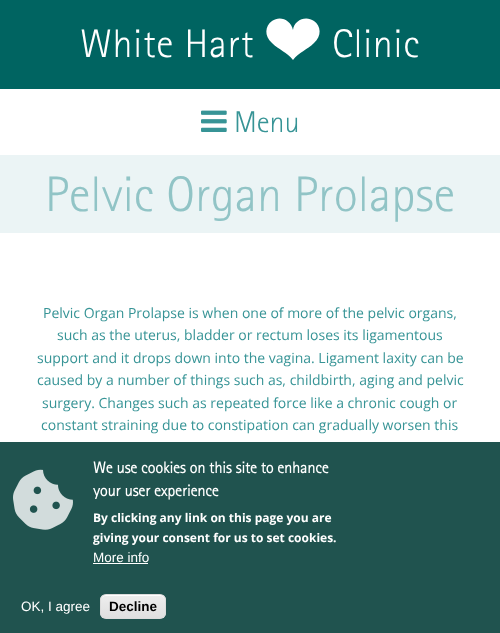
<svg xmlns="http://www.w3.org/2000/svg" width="500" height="633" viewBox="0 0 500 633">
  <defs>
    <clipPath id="clip1"><rect x="100" y="594" width="66" height="25" rx="6"/></clipPath>
    <linearGradient id="g1" gradientUnits="userSpaceOnUse" x1="133" y1="595" x2="133" y2="618"><stop offset="0.05" stop-color="#ededed"/><stop offset="1" stop-color="#dfdfdf"/></linearGradient>
  </defs>
  <rect width="100%" height="100%" fill="#fff"/>
  <path d="M0 0h500v89H0z" fill="#006461"/>
  <path d="M293 60C287 52 279 50 272 43C264 36 265 26 272 21C280 15 291 20 293 30C294 20 306 15 314 21C321 26 322 36 314 43C307 50 299 52 293 60Z" fill="#fff"/>
  <image x="201" y="110" width="26" height="22" href="img/1.png"/>
  <path d="M0 155h500v78H0z" fill="#ebf4f5"/>
  <path d="M0 442h500v191H0z" fill="#20534f"/>
  <image x="13" y="469" width="60" height="61" href="img/2.png"/>
  <path d="M93 563h55v1H93z" fill="#fff"/>
  <g clip-path="url(#clip1)">
    <path d="M100 595h66v23H100z" fill="url(#g1)"/>
  </g>
  <path d="M106 596H160C163 596 165 598 165 601C165 593 157 595 151 595H115C109 595 101 593 101 601C101 598 103 596 106 596Z" fill="#fff"/>
  <rect x="100.5" y="594.5" width="65" height="24" rx="5.5" fill="none" stroke="#dcdcdc"/>
  <g font-family="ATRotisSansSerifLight" font-size="40" font-weight="300" letter-spacing="0.75" fill="#fff">
    <text x="80" y="57">White Hart</text>
    <text x="332" y="57">Clinic</text>
  </g>
  <text x="234" y="132" font-family="ATRotisSansSerifLight" font-size="30" font-weight="300" fill="#379496">Menu</text>
  <text x="45" y="211" font-family="ATRotisSansSerifLight" font-size="50" font-weight="300" fill="#91c4c6">Pelvic Organ Prolapse</text>
  <g font-family="Open Sans" font-size="14" fill="#379496">
    <text x="43" y="318">Pelvic Organ Prolapse is when one of more of the pelvic organs,</text>
    <text x="57" y="340">such as the uterus, bladder or rectum loses its ligamentous</text>
    <text x="37" y="363">support and it drops down into the vagina. Ligament laxity can be</text>
    <text x="37" y="385">caused by a number of things such as, childbirth, aging and pelvic</text>
    <text x="42" y="408">surgery. Changes such as repeated force like a chronic cough or</text>
    <text x="41" y="430">constant straining due to constipation can gradually worsen this</text>
  </g>
  <g font-family="ATRotisSansSerifLight" font-size="16" font-weight="bold" fill="#fff">
    <text x="93" y="473">We use cookies on this site to enhance</text>
    <text x="93" y="496">your user experience</text>
  </g>
  <g font-family="Open Sans" font-size="12" font-weight="bold" fill="#fff">
    <text x="93" y="522">By clicking any link on this page you are</text>
    <text x="93" y="542">giving your consent for us to set cookies.</text>
  </g>
  <g font-family="Liberation Sans" font-size="13.5" fill="#fff">
    <text x="93" y="562">More info</text>
    <text x="21" y="611">OK, I agree</text>
  </g>
  <text x="109" y="611" font-family="Liberation Sans" font-size="13.5" font-weight="bold" fill="#000">Decline</text>
</svg>
